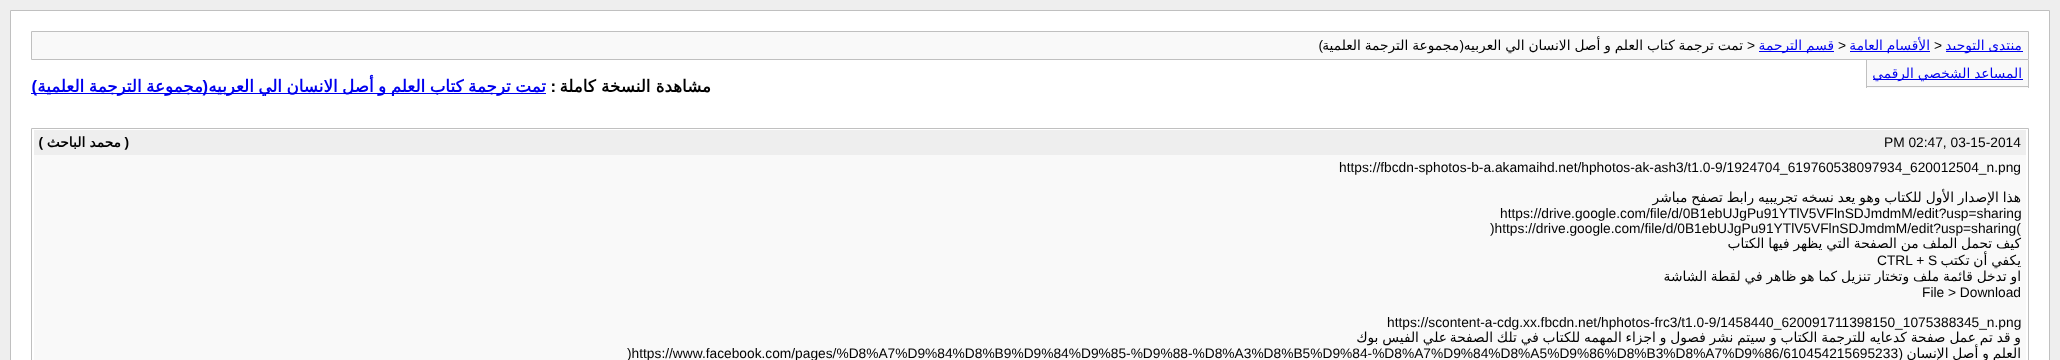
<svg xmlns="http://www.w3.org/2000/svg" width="2060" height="360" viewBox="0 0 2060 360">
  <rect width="100%" height="100%" fill="#eee"/>
  <path d="M10.5 10.5h2039v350H10.5z" fill="#fff" stroke="#c0c0c0"/>
  <path d="M31.5 31.5h1997v28H31.5z" fill="#f9f9f9" stroke="#c0c0c0"/>
  <path d="M1759 51h75v1H1759z" fill="#00e"/>
  <path d="M1850 51h80v1H1850z" fill="#00e"/>
  <path d="M1946 51h77v1H1946z" fill="#00e"/>
  <path d="M31 93h515v1H31z" fill="#00e"/>
  <path d="M1867 60h161v28H1867z" fill="#f9f9f9"/>
  <path d="M2028 60h1v28H2028z" fill="#c0c0c0"/>
  <path d="M1866 86h163v1H1866z" fill="#c0c0c0"/>
  <path d="M1866 60h1v28H1866z" fill="#c0c0c0"/>
  <path d="M1873 79h150v1H1873z" fill="#00e"/>
  <path d="M31.5 128.5h1997v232H31.5z" fill="none" stroke="#c0c0c0"/>
  <path d="M34 130h1992v25H34z" fill="#eee"/>
  <path d="M34 155h1992v205H34z" fill="#f9f9f9"/>
  <text x="1323" y="50" font-family="Liberation Sans" font-size="13.75" direction="rtl" fill="#000">)</text>
  <text x="1459" y="50" word-spacing="-0.5" font-family="DejaVu Sans" font-size="13.75" direction="rtl" fill="#000">مجموعة الترجمة العلمية</text>
  <text x="1464" y="50" font-family="Liberation Sans" font-size="13.75" direction="rtl" fill="#000">(</text>
  <text x="1743" y="50" word-spacing="-0.5" font-family="DejaVu Sans" font-size="13.75" direction="rtl" fill="#000">تمت ترجمة كتاب العلم و أصل الانسان الي العربيه</text>
  <text x="1747" y="50" font-family="Liberation Sans" font-size="13.75" fill="#000">&gt;</text>
  <text x="1834" y="50" word-spacing="-0.5" font-family="DejaVu Sans" font-size="13.75" direction="rtl" fill="#00e">قسم الترجمة</text>
  <text x="1838" y="50" font-family="Liberation Sans" font-size="13.75" fill="#000">&gt;</text>
  <text x="1930" y="50" word-spacing="-0.5" font-family="DejaVu Sans" font-size="13.75" direction="rtl" fill="#00e">الأقسام العامة</text>
  <text x="1934" y="50" font-family="Liberation Sans" font-size="13.75" fill="#000">&gt;</text>
  <text x="2022" y="50" word-spacing="-0.5" font-family="DejaVu Sans" font-size="13.75" direction="rtl" fill="#00e">منتدى التوحيد</text>
  <text x="37" y="92" font-family="Liberation Sans" font-size="16.7" font-weight="bold" direction="rtl" fill="#00e">)</text>
  <text x="203" y="92" word-spacing="-0.75" font-family="DejaVu Sans" font-size="16.7" font-weight="bold" direction="rtl" fill="#00e">مجموعة الترجمة العلمية</text>
  <text x="208" y="92" font-family="Liberation Sans" font-size="16.7" font-weight="bold" direction="rtl" fill="#00e">(</text>
  <text x="546" y="92" word-spacing="-0.75" font-family="DejaVu Sans" font-size="16.7" font-weight="bold" direction="rtl" fill="#00e">تمت ترجمة كتاب العلم و أصل الانسان الي العربيه</text>
  <text x="556" y="92" font-family="Liberation Sans" font-size="16.7" font-weight="bold" direction="rtl" fill="#000">:</text>
  <text x="711" y="92" font-family="DejaVu Sans" font-size="16.7" font-weight="bold" direction="rtl" fill="#000">مشاهدة النسخة كاملة</text>
  <text x="2022" y="78" word-spacing="-0.5" font-family="DejaVu Sans" font-size="13.75" direction="rtl" fill="#00e">المساعد الشخصي الرقمي</text>
  <text x="43" y="147" font-family="Liberation Sans" font-size="13.75" font-weight="bold" direction="rtl" fill="#000">)</text>
  <text x="121" y="147" font-family="DejaVu Sans" font-size="13.75" font-weight="bold" direction="rtl" fill="#000">محمد الباحث</text>
  <text x="129" y="147" font-family="Liberation Sans" font-size="13.75" font-weight="bold" direction="rtl" fill="#000">(</text>
  <g font-family="Liberation Sans" font-size="13.75" fill="#000">
    <text x="1884" y="147">PM 02:47, 03-15-2014</text>
    <text x="1339" y="172">https://fbcdn-sphotos-b-a.akamaihd.net/hphotos-ak-ash3/t1.0-9/1924704_619760538097934_620012504_n.png</text>
  </g>
  <text x="2021" y="202" word-spacing="-0.5" font-family="DejaVu Sans" font-size="13.75" direction="rtl" fill="#000">هذا الإصدار الأول للكتاب وهو يعد نسخه تجريبيه رابط تصفح مباشر</text>
  <g font-family="Liberation Sans" font-size="13.75" fill="#000">
    <text x="1500" y="218">https://drive.google.com/file/d/0B1ebUJgPu91YTlV5VFlnSDJmdmM/edit?usp=sharing</text>
    <text x="1490" y="233">)https://drive.google.com/file/d/0B1ebUJgPu91YTlV5VFlnSDJmdmM/edit?usp=sharing(</text>
  </g>
  <text x="2021" y="248" word-spacing="-0.5" font-family="DejaVu Sans" font-size="13.75" direction="rtl" fill="#000">كيف تحمل الملف من الصفحة التي يظهر فيها الكتاب</text>
  <text x="1877" y="265" font-family="Liberation Sans" font-size="13.75" fill="#000">CTRL + S</text>
  <g font-family="DejaVu Sans" font-size="13.75" direction="rtl" fill="#000">
    <text x="2021" y="265" word-spacing="-0.5">يكفي أن تكتب</text>
    <text x="2021" y="281" word-spacing="-0.5">او تدخل قائمة ملف وتختار تنزيل كما هو ظاهر في لقطة الشاشة</text>
  </g>
  <g font-family="Liberation Sans" font-size="13.75" fill="#000">
    <text x="1922" y="297">File &gt; Download</text>
    <text x="1387" y="327">https://scontent-a-cdg.xx.fbcdn.net/hphotos-frc3/t1.0-9/1458440_620091711398150_1075388345_n.png</text>
  </g>
  <g font-family="DejaVu Sans" font-size="13.75" direction="rtl" fill="#000">
    <text x="1447" y="342" word-spacing="-0.5">علي الفيس بوك</text>
    <text x="2021" y="342" word-spacing="-0.5">و قد تم عمل صفحة كدعايه للترجمة الكتاب و سيتم نشر فصول و اجزاء المهمه للكتاب في تلك الصفحة</text>
  </g>
  <text x="627" y="358" font-family="Liberation Sans" font-size="13.75" fill="#000">)https://www.facebook.com/pages/%D8%A7%D9%84%D8%B9%D9%84%D9%85-%D9%88-%D8%A3%D8%B5%D9%84-%D8%A7%D9%84%D8%A5%D9%86%D8%B3%D8%A7%D9%86/610454215695233</text>
  <text x="1903" y="358" font-family="Liberation Sans" font-size="13.75" direction="rtl" fill="#000">(</text>
  <text x="2021" y="358" word-spacing="-0.5" font-family="DejaVu Sans" font-size="13.75" direction="rtl" fill="#000">العلم و أصل الإنسان</text>
</svg>
